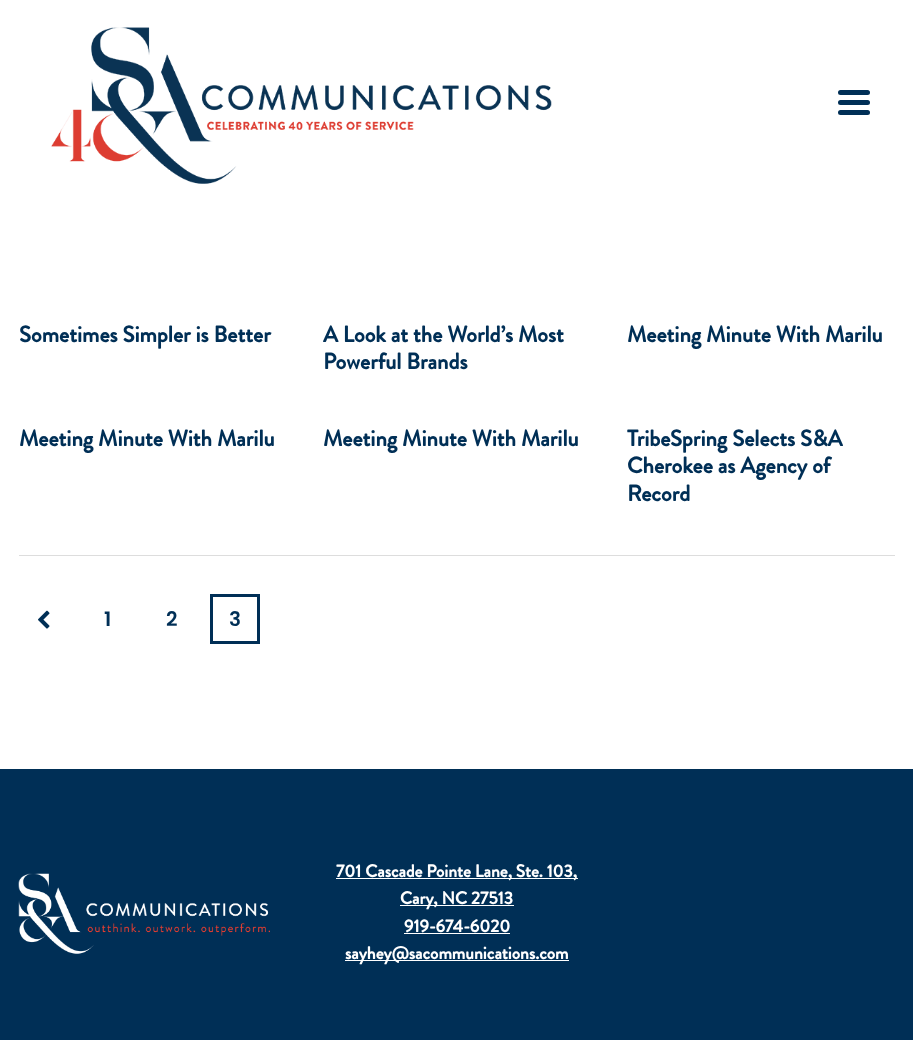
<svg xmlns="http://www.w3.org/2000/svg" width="913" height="1040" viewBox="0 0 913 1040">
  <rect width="100%" height="100%" fill="#fff"/>
  <image x="51" y="27" width="501" height="157" href="img/1.png"/>
  <rect x="838" y="100" width="32" height="5" rx="2.5" fill="#002f56"/>
  <rect x="838" y="90" width="32" height="5" rx="2.5" fill="#002f56"/>
  <rect x="838" y="110" width="32" height="5" rx="2.5" fill="#002f56"/>
  <path d="M19 555h876v1H19z" fill="#ddd"/>
  <image x="38" y="610" width="12" height="19" href="img/2.png"/>
  <path d="M211.5 595.5h47v47H211.5z" fill="none" stroke="#002f56" stroke-width="3"/>
  <path d="M0 769h913v271H0z" fill="#002f56"/>
  <image x="18" y="873" width="252" height="81" href="img/3.png"/>
  <path d="M336 878h242v1H336z" fill="#fff"/>
  <path d="M400 905h114v1H400z" fill="#fff"/>
  <path d="M404 933h106v1H404z" fill="#fff"/>
  <path d="M345 960h224v1H345z" fill="#fff"/>
  <g font-family="Brandon Grotesque" font-size="22.5" font-weight="bold" fill="#002f56">
    <text x="19" y="342">Sometimes Simpler is Better</text>
    <text x="323" y="342">A Look at the World’s Most</text>
    <text x="323" y="369">Powerful Brands</text>
    <text x="627" y="342">Meeting Minute With Marilu</text>
    <text x="19" y="446">Meeting Minute With Marilu</text>
    <text x="323" y="446">Meeting Minute With Marilu</text>
    <text x="627" y="446">TribeSpring Selects S&amp;A</text>
    <text x="627" y="473">Cherokee as Agency of</text>
    <text x="627" y="501">Record</text>
  </g>
  <g font-family="Poppins" font-size="20" font-weight="600" fill="#002f56">
    <text x="104" y="626">1</text>
    <text x="166" y="626">2</text>
    <text x="229" y="626">3</text>
  </g>
  <g font-family="Brandon Grotesque" font-size="17.5" font-weight="bold" fill="#fff">
    <text x="336" y="877">701 Cascade Pointe Lane, Ste. 103,</text>
    <text x="400" y="904">Cary, NC 27513</text>
    <text x="404" y="932">919-674-6020</text>
    <text x="345" y="959">sayhey@sacommunications.com</text>
  </g>
</svg>
